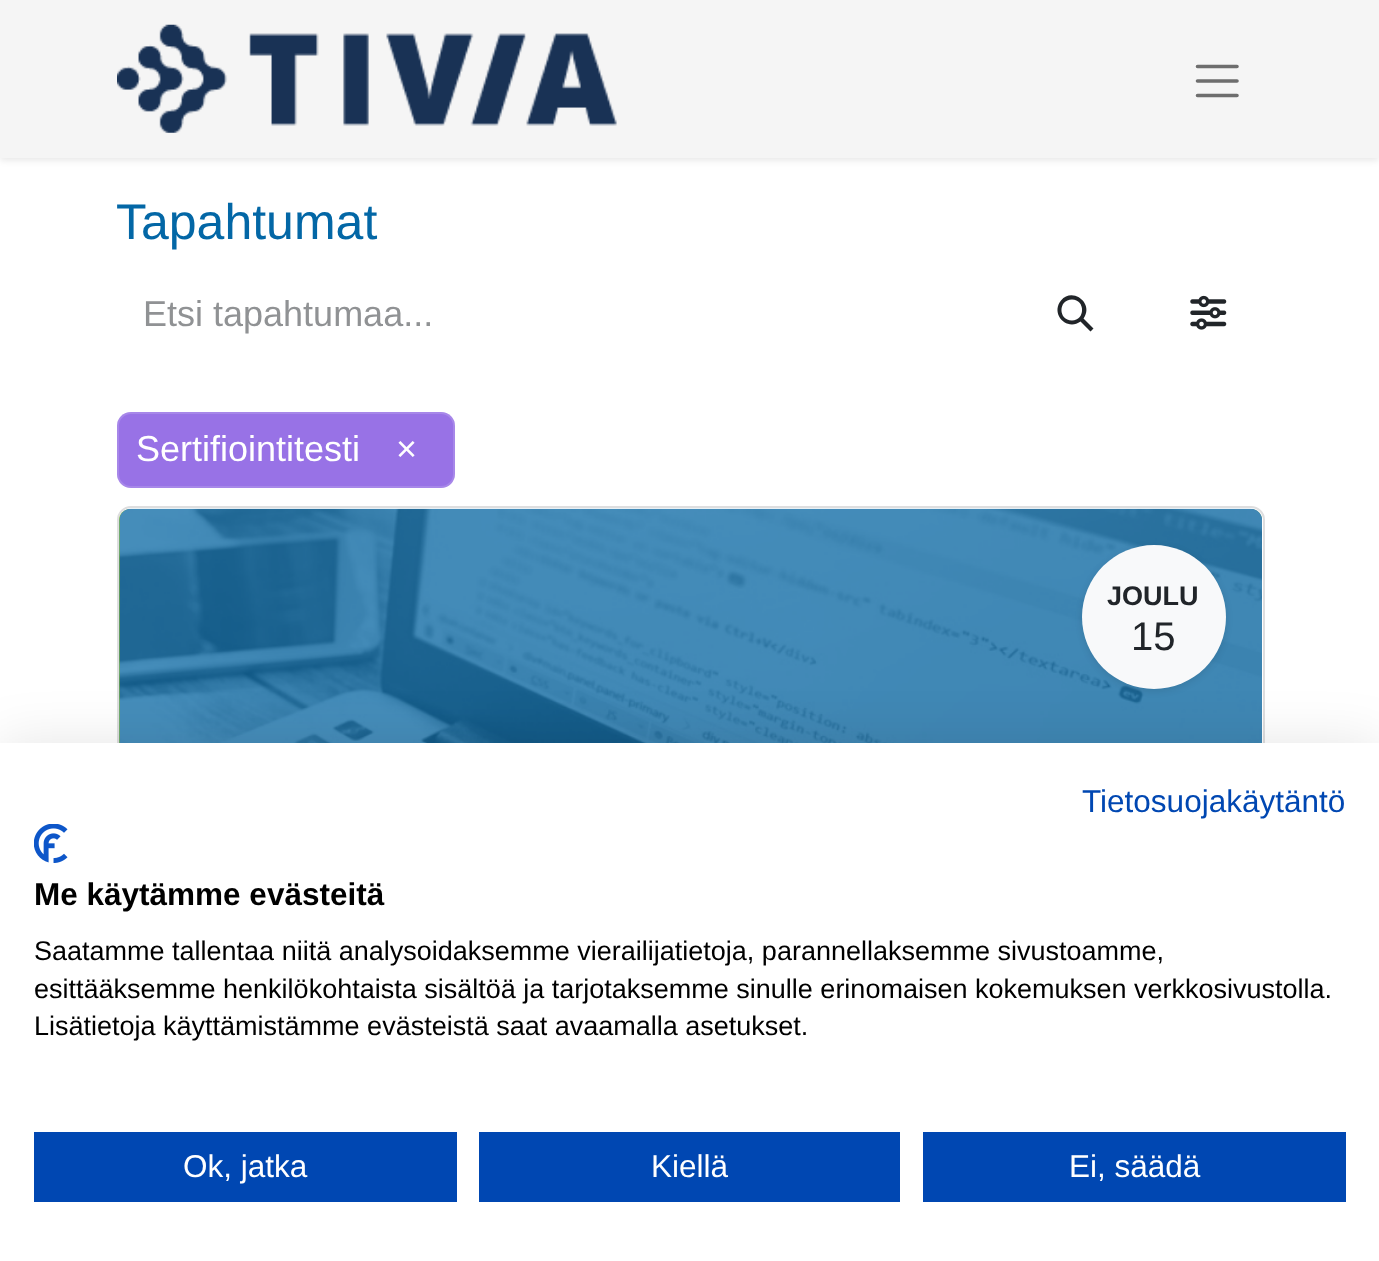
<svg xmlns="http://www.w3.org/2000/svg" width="1379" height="1261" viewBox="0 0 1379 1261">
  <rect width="100%" height="100%" fill="#fff"/>
  <path d="M0 2h1379v158H0z" fill="#0000001a" filter="blur(3.5px)"/>
  <path d="M0 0h1379v158H0z" fill="#f5f5f5"/>
  <image x="117" y="24" width="500" height="109" href="img/1.png"/>
  <path d="M1197.5 66.5H1237M1197.5 81H1237M1197.5 95.5H1237" fill="none" stroke="#6e6e6e" stroke-width="3.6" stroke-linecap="round"/>
  <path d="M1061 300.5C1072.5 286.5 1094.5 303.5 1083.5 318.5L1093.5 328.5L1090.5 331.5L1080.5 321.5C1067 331.5 1050 314 1061 300.5ZM1072 299.5C1058 299.5 1058 320.5 1072 320.5C1085.5 320.5 1085.5 299.5 1072 299.5Z" fill="#212529"/>
  <image x="1190" y="295" width="37" height="35" href="img/2.png"/>
  <rect x="117" y="412" width="338" height="76" rx="14" fill="#9872e6"/>
  <rect x="118" y="413" width="336" height="74" rx="13" fill="none" stroke="#ffffff26" stroke-width="2"/>
  <rect x="118" y="507" width="1146" height="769" rx="13" fill="none" stroke="#dededf" stroke-width="2"/>
  <path d="M130 509H1251C1257 509 1262 514 1262 520V959H119V520C119 514 124 509 130 509Z" fill="#8fc038"/>
  <image x="119" y="508" width="1143" height="235" href="img/3.png"/>
  <rect x="1082" y="547" width="144" height="144" rx="72" fill="#0000001a" filter="blur(3.5px)"/>
  <circle cx="1154" cy="617" r="72" fill="#f8f9fa"/>
  <path d="M0 743h1379v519H0z" fill="#0000001a" filter="blur(27px)"/>
  <path d="M0 743h1379v518H0z" fill="#fff"/>
  <image x="34" y="824" width="34" height="39" href="img/4.png"/>
  <path d="M34 1132h423v70H34z" fill="#0047b2"/>
  <path d="M479 1132h421v70H479z" fill="#0047b2"/>
  <path d="M923 1132h423v70H923z" fill="#0047b2"/>
  <text x="116" y="239" font-family="Arimo" font-size="50" fill="#0367a6">Tapahtumat</text>
  <text x="143" y="326" font-family="Arimo" font-size="36" fill="#909294">Etsi tapahtumaa...</text>
  <g font-family="Arimo" font-size="36" fill="#fff">
    <text x="136" y="461">Sertifiointitesti</text>
    <text x="396" y="461">×</text>
  </g>
  <text x="1107" y="605" font-family="Arimo" font-size="27" font-weight="bold" fill="#212529">JOULU</text>
  <text x="1131" y="650" font-family="Arimo" font-size="40" fill="#212529">15</text>
  <text x="1082" y="812" font-family="Arimo" font-size="31.5" fill="#0047b2">Tietosuojakäytäntö</text>
  <text x="34" y="905" font-family="Arimo" font-size="31.5" font-weight="bold" fill="#000">Me käytämme evästeitä</text>
  <g font-family="Arimo" font-size="27" fill="#000">
    <text x="34" y="960">Saatamme tallentaa niitä analysoidaksemme vierailijatietoja, parannellaksemme sivustoamme,</text>
    <text x="34" y="998">esittääksemme henkilökohtaista sisältöä ja tarjotaksemme sinulle erinomaisen kokemuksen verkkosivustolla.</text>
    <text x="34" y="1035">Lisätietoja käyttämistämme evästeistä saat avaamalla asetukset.</text>
  </g>
  <g font-family="Arimo" font-size="31.5" fill="#fff">
    <text x="183" y="1177">Ok, jatka</text>
    <text x="651" y="1177">Kiellä</text>
    <text x="1069" y="1177">Ei, säädä</text>
  </g>
</svg>
